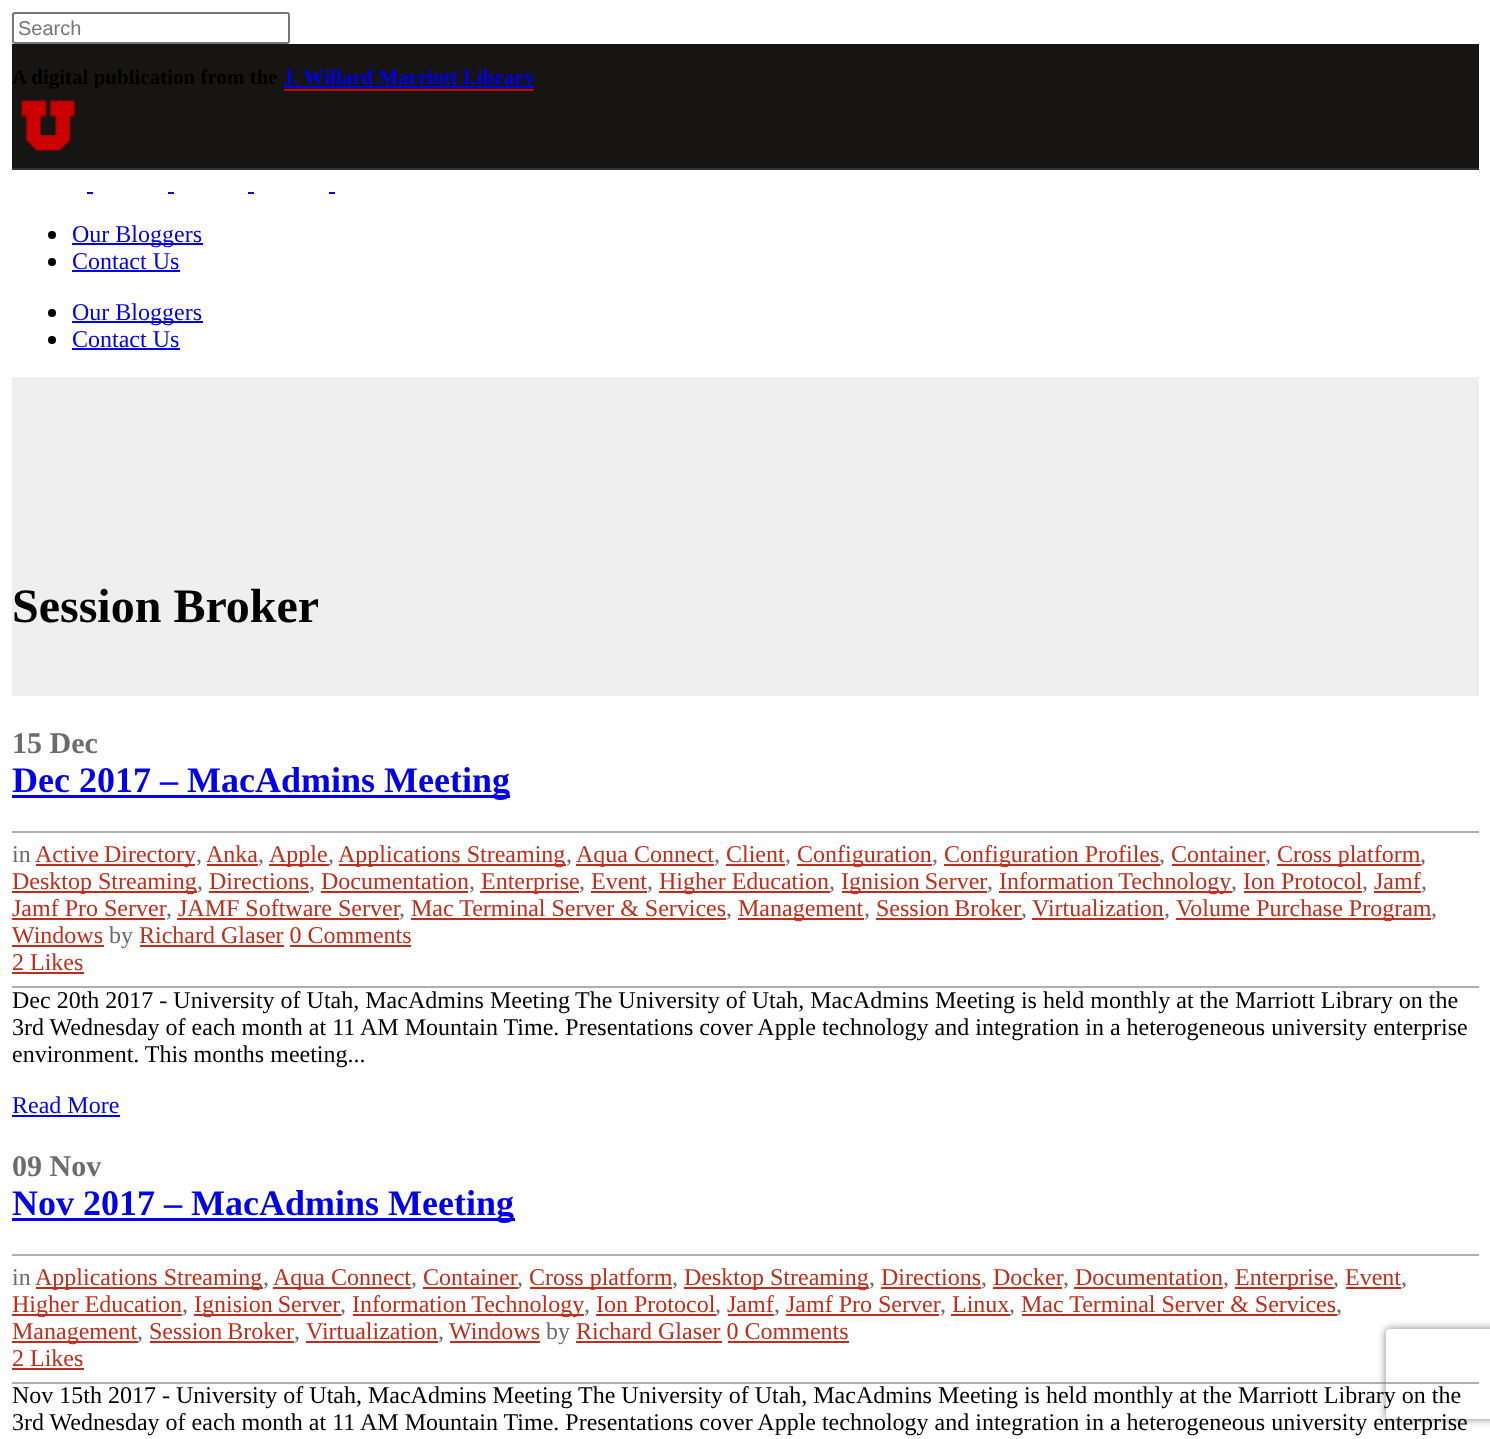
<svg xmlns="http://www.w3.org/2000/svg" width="1490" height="1439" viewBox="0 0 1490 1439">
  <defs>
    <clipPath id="clip1"><path d="M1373 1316H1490V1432H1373ZM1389 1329H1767C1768.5 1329 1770 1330.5 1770 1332V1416C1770 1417.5 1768.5 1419 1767 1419H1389C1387.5 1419 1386 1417.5 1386 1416V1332C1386 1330.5 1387.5 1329 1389 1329Z" clip-rule="evenodd"/></clipPath>
  </defs>
  <rect width="100%" height="100%" fill="#fff"/>
  <rect x="13" y="13" width="276" height="30" rx="2" fill="none" stroke="#767676" stroke-width="2"/>
  <path d="M12 44h1467v124H12z" fill="#161514"/>
  <path d="M12 168h1467v2H12z" fill="#333332"/>
  <path d="M284 89h250v2H284z" fill="#c00"/>
  <path d="M284 86h250v2H284z" fill="#00e"/>
  <image x="20" y="100" width="56" height="52" href="img/1.png"/>
  <path d="M87 192h6v2H87z" fill="#00e"/>
  <path d="M168 192h6v2H168z" fill="#00e"/>
  <path d="M248 192h6v2H248z" fill="#00e"/>
  <path d="M329 192h6v2H329z" fill="#00e"/>
  <circle cx="52" cy="235" r="4" fill="#000"/>
  <path d="M72 243h131v2H72z" fill="#00e"/>
  <circle cx="52" cy="262" r="4" fill="#000"/>
  <path d="M72 270h108v2H72z" fill="#00e"/>
  <circle cx="52" cy="313" r="4" fill="#000"/>
  <path d="M72 321h131v2H72z" fill="#00e"/>
  <circle cx="52" cy="340" r="4" fill="#000"/>
  <path d="M72 348h108v2H72z" fill="#00e"/>
  <path d="M12 377h1467v319H12z" fill="#efefef"/>
  <path d="M12 795h498v3H12z" fill="#00e"/>
  <path d="M12 831h1467v2H12z" fill="#afafaf"/>
  <path d="M12 986h1467v2H12z" fill="#afafaf"/>
  <path d="M36 864h159v2H36z" fill="#c22d19"/>
  <path d="M207 864h51v2H207z" fill="#c22d19"/>
  <path d="M269 864h60v2H269z" fill="#c22d19"/>
  <path d="M339 864h227v2H339z" fill="#c22d19"/>
  <path d="M576 864h138v2H576z" fill="#c22d19"/>
  <path d="M726 864h59v2H726z" fill="#c22d19"/>
  <path d="M797 864h135v2H797z" fill="#c22d19"/>
  <path d="M944 864h216v2H944z" fill="#c22d19"/>
  <path d="M1172 864h93v2H1172z" fill="#c22d19"/>
  <path d="M1277 864h144v2H1277z" fill="#c22d19"/>
  <path d="M12 891h185v2H12z" fill="#c22d19"/>
  <path d="M209 891h100v2H209z" fill="#c22d19"/>
  <path d="M321 891h147v2H321z" fill="#c22d19"/>
  <path d="M480 891h99v2H480z" fill="#c22d19"/>
  <path d="M591 891h56v2H591z" fill="#c22d19"/>
  <path d="M659 891h171v2H659z" fill="#c22d19"/>
  <path d="M842 891h145v2H842z" fill="#c22d19"/>
  <path d="M999 891h233v2H999z" fill="#c22d19"/>
  <path d="M1244 891h118v2H1244z" fill="#c22d19"/>
  <path d="M1374 891h47v2H1374z" fill="#c22d19"/>
  <path d="M12 918h153v2H12z" fill="#c22d19"/>
  <path d="M177 918h222v2H177z" fill="#c22d19"/>
  <path d="M411 918h315v2H411z" fill="#c22d19"/>
  <path d="M738 918h126v2H738z" fill="#c22d19"/>
  <path d="M876 918h146v2H876z" fill="#c22d19"/>
  <path d="M1032 918h132v2H1032z" fill="#c22d19"/>
  <path d="M1176 918h255v2H1176z" fill="#c22d19"/>
  <path d="M12 945h92v2H12z" fill="#c22d19"/>
  <path d="M140 945h144v2H140z" fill="#c22d19"/>
  <path d="M290 945h121v2H290z" fill="#c22d19"/>
  <path d="M12 972h72v2H12z" fill="#c22d19"/>
  <path d="M12 1115h108v2H12z" fill="#00e"/>
  <path d="M12 1218h503v3H12z" fill="#00e"/>
  <path d="M12 1254h1467v2H12z" fill="#afafaf"/>
  <path d="M12 1382h1467v2H12z" fill="#afafaf"/>
  <path d="M36 1287h227v2H36z" fill="#c22d19"/>
  <path d="M273 1287h138v2H273z" fill="#c22d19"/>
  <path d="M423 1287h95v2H423z" fill="#c22d19"/>
  <path d="M530 1287h142v2H530z" fill="#c22d19"/>
  <path d="M684 1287h185v2H684z" fill="#c22d19"/>
  <path d="M881 1287h100v2H881z" fill="#c22d19"/>
  <path d="M993 1287h69v2H993z" fill="#c22d19"/>
  <path d="M1074 1287h149v2H1074z" fill="#c22d19"/>
  <path d="M1235 1287h99v2H1235z" fill="#c22d19"/>
  <path d="M1346 1287h55v2H1346z" fill="#c22d19"/>
  <path d="M12 1314h170v2H12z" fill="#c22d19"/>
  <path d="M194 1314h147v2H194z" fill="#c22d19"/>
  <path d="M353 1314h231v2H353z" fill="#c22d19"/>
  <path d="M596 1314h120v2H596z" fill="#c22d19"/>
  <path d="M728 1314h46v2H728z" fill="#c22d19"/>
  <path d="M786 1314h153v2H786z" fill="#c22d19"/>
  <path d="M951 1314h59v2H951z" fill="#c22d19"/>
  <path d="M1022 1314h315v2H1022z" fill="#c22d19"/>
  <path d="M12 1341h126v2H12z" fill="#c22d19"/>
  <path d="M150 1341h144v2H150z" fill="#c22d19"/>
  <path d="M306 1341h132v2H306z" fill="#c22d19"/>
  <path d="M450 1341h90v2H450z" fill="#c22d19"/>
  <path d="M576 1341h146v2H576z" fill="#c22d19"/>
  <path d="M728 1341h121v2H728z" fill="#c22d19"/>
  <path d="M12 1368h72v2H12z" fill="#c22d19"/>
  <g clip-path="url(#clip1)">
    <rect x="1386" y="1329" width="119" height="90" rx="3" fill="#808080" filter="blur(4px)"/>
  </g>
  <text x="18" y="35" font-family="Liberation Sans" font-size="20" fill="#757575">Search</text>
  <text x="12" y="84" font-family="Liberation Serif" font-size="21" font-weight="bold" fill="#000">A digital publication from the</text>
  <text x="283" y="84" font-family="Liberation Serif" font-size="21" font-weight="bold" fill="#00e">J. Willard Marriott Library</text>
  <g font-family="Liberation Serif" font-size="24" fill="#00e">
    <text x="72" y="242">Our Bloggers</text>
    <text x="72" y="269">Contact Us</text>
    <text x="72" y="320">Our Bloggers</text>
    <text x="72" y="347">Contact Us</text>
  </g>
  <text x="12" y="622" font-family="Liberation Serif" font-size="48" font-weight="bold" fill="#000">Session Broker</text>
  <text x="12" y="753" font-family="Liberation Serif" font-size="30" font-weight="bold" fill="#6c6c6c">15 Dec</text>
  <text x="12" y="792" font-family="Liberation Serif" font-size="36" font-weight="bold" fill="#00e">Dec 2017 – MacAdmins Meeting</text>
  <text x="12" y="862" font-family="Liberation Serif" font-size="24" fill="#6c6c6c">in</text>
  <text x="35" y="862" word-spacing="-1" font-family="Liberation Serif" font-size="24" fill="#c22d19">Active Directory</text>
  <text x="196" y="862" font-family="Liberation Serif" font-size="24" fill="#6c6c6c">,</text>
  <text x="206" y="862" font-family="Liberation Serif" font-size="24" fill="#c22d19">Anka</text>
  <text x="258" y="862" font-family="Liberation Serif" font-size="24" fill="#6c6c6c">,</text>
  <text x="269" y="862" font-family="Liberation Serif" font-size="24" fill="#c22d19">Apple</text>
  <text x="328" y="862" font-family="Liberation Serif" font-size="24" fill="#6c6c6c">,</text>
  <text x="338" y="862" font-family="Liberation Serif" font-size="24" fill="#c22d19">Applications Streaming</text>
  <text x="566" y="862" font-family="Liberation Serif" font-size="24" fill="#6c6c6c">,</text>
  <text x="576" y="862" font-family="Liberation Serif" font-size="24" fill="#c22d19">Aqua Connect</text>
  <text x="714" y="862" font-family="Liberation Serif" font-size="24" fill="#6c6c6c">,</text>
  <text x="726" y="862" font-family="Liberation Serif" font-size="24" fill="#c22d19">Client</text>
  <text x="785" y="862" font-family="Liberation Serif" font-size="24" fill="#6c6c6c">,</text>
  <text x="797" y="862" font-family="Liberation Serif" font-size="24" fill="#c22d19">Configuration</text>
  <text x="932" y="862" font-family="Liberation Serif" font-size="24" fill="#6c6c6c">,</text>
  <text x="944" y="862" font-family="Liberation Serif" font-size="24" fill="#c22d19">Configuration Profiles</text>
  <text x="1159" y="862" font-family="Liberation Serif" font-size="24" fill="#6c6c6c">,</text>
  <text x="1171" y="862" font-family="Liberation Serif" font-size="24" fill="#c22d19">Container</text>
  <text x="1265" y="862" font-family="Liberation Serif" font-size="24" fill="#6c6c6c">,</text>
  <text x="1277" y="862" font-family="Liberation Serif" font-size="24" fill="#c22d19">Cross platform</text>
  <text x="1420" y="862" font-family="Liberation Serif" font-size="24" fill="#6c6c6c">,</text>
  <text x="12" y="889" font-family="Liberation Serif" font-size="24" fill="#c22d19">Desktop Streaming</text>
  <text x="197" y="889" font-family="Liberation Serif" font-size="24" fill="#6c6c6c">,</text>
  <text x="209" y="889" font-family="Liberation Serif" font-size="24" fill="#c22d19">Directions</text>
  <text x="309" y="889" font-family="Liberation Serif" font-size="24" fill="#6c6c6c">,</text>
  <text x="321" y="889" font-family="Liberation Serif" font-size="24" fill="#c22d19">Documentation</text>
  <text x="469" y="889" font-family="Liberation Serif" font-size="24" fill="#6c6c6c">,</text>
  <text x="481" y="889" font-family="Liberation Serif" font-size="24" fill="#c22d19">Enterprise</text>
  <text x="579" y="889" font-family="Liberation Serif" font-size="24" fill="#6c6c6c">,</text>
  <text x="591" y="889" font-family="Liberation Serif" font-size="24" fill="#c22d19">Event</text>
  <text x="647" y="889" font-family="Liberation Serif" font-size="24" fill="#6c6c6c">,</text>
  <text x="659" y="889" font-family="Liberation Serif" font-size="24" fill="#c22d19">Higher Education</text>
  <text x="829" y="889" font-family="Liberation Serif" font-size="24" fill="#6c6c6c">,</text>
  <text x="841" y="889" word-spacing="-1" font-family="Liberation Serif" font-size="24" fill="#c22d19">Ignision Server</text>
  <text x="987" y="889" font-family="Liberation Serif" font-size="24" fill="#6c6c6c">,</text>
  <text x="999" y="889" word-spacing="-1" font-family="Liberation Serif" font-size="24" fill="#c22d19">Information Technology</text>
  <text x="1231" y="889" font-family="Liberation Serif" font-size="24" fill="#6c6c6c">,</text>
  <text x="1243" y="889" font-family="Liberation Serif" font-size="24" fill="#c22d19">Ion Protocol</text>
  <text x="1362" y="889" font-family="Liberation Serif" font-size="24" fill="#6c6c6c">,</text>
  <text x="1374" y="889" font-family="Liberation Serif" font-size="24" fill="#c22d19">Jamf</text>
  <text x="1421" y="889" font-family="Liberation Serif" font-size="24" fill="#6c6c6c">,</text>
  <text x="12" y="916" font-family="Liberation Serif" font-size="24" fill="#c22d19">Jamf Pro Server</text>
  <text x="166" y="916" font-family="Liberation Serif" font-size="24" fill="#6c6c6c">,</text>
  <text x="178" y="916" font-family="Liberation Serif" font-size="24" fill="#c22d19">JAMF Software Server</text>
  <text x="399" y="916" font-family="Liberation Serif" font-size="24" fill="#6c6c6c">,</text>
  <text x="411" y="916" font-family="Liberation Serif" font-size="24" fill="#c22d19">Mac Terminal Server &amp; Services</text>
  <text x="726" y="916" font-family="Liberation Serif" font-size="24" fill="#6c6c6c">,</text>
  <text x="738" y="916" font-family="Liberation Serif" font-size="24" fill="#c22d19">Management</text>
  <text x="864" y="916" font-family="Liberation Serif" font-size="24" fill="#6c6c6c">,</text>
  <text x="876" y="916" word-spacing="-1" font-family="Liberation Serif" font-size="24" fill="#c22d19">Session Broker</text>
  <text x="1021" y="916" font-family="Liberation Serif" font-size="24" fill="#6c6c6c">,</text>
  <text x="1032" y="916" font-family="Liberation Serif" font-size="24" fill="#c22d19">Virtualization</text>
  <text x="1164" y="916" font-family="Liberation Serif" font-size="24" fill="#6c6c6c">,</text>
  <text x="1176" y="916" font-family="Liberation Serif" font-size="24" fill="#c22d19">Volume Purchase Program</text>
  <text x="1431" y="916" font-family="Liberation Serif" font-size="24" fill="#6c6c6c">,</text>
  <text x="12" y="943" font-family="Liberation Serif" font-size="24" fill="#c22d19">Windows</text>
  <text x="109" y="943" font-family="Liberation Serif" font-size="24" fill="#6c6c6c">by</text>
  <g font-family="Liberation Serif" font-size="24" fill="#c22d19">
    <text x="139" y="943">Richard Glaser 0 Comments</text>
    <text x="12" y="970">2 Likes</text>
  </g>
  <g font-family="Liberation Serif" font-size="24" fill="#000">
    <text x="12" y="1008">Dec 20th 2017 - University of Utah, MacAdmins Meeting</text>
    <text x="575" y="1008">The University of Utah, MacAdmins Meeting is held monthly at the Marriott Library on the</text>
    <text x="12" y="1035">3rd Wednesday of each month at 11 AM Mountain Time. Presentations cover Apple technology and integration in a heterogeneous university enterprise</text>
    <text x="12" y="1062">environment. This months meeting...</text>
  </g>
  <text x="12" y="1113" font-family="Liberation Serif" font-size="24" fill="#00e">Read More</text>
  <text x="12" y="1176" font-family="Liberation Serif" font-size="30" font-weight="bold" fill="#6c6c6c">09 Nov</text>
  <text x="12" y="1215" font-family="Liberation Serif" font-size="36" font-weight="bold" fill="#00e">Nov 2017 – MacAdmins Meeting</text>
  <text x="12" y="1285" font-family="Liberation Serif" font-size="24" fill="#6c6c6c">in</text>
  <text x="35" y="1285" font-family="Liberation Serif" font-size="24" fill="#c22d19">Applications Streaming</text>
  <text x="263" y="1285" font-family="Liberation Serif" font-size="24" fill="#6c6c6c">,</text>
  <text x="273" y="1285" font-family="Liberation Serif" font-size="24" fill="#c22d19">Aqua Connect</text>
  <text x="411" y="1285" font-family="Liberation Serif" font-size="24" fill="#6c6c6c">,</text>
  <text x="423" y="1285" font-family="Liberation Serif" font-size="24" fill="#c22d19">Container</text>
  <text x="517" y="1285" font-family="Liberation Serif" font-size="24" fill="#6c6c6c">,</text>
  <text x="529" y="1285" font-family="Liberation Serif" font-size="24" fill="#c22d19">Cross platform</text>
  <text x="672" y="1285" font-family="Liberation Serif" font-size="24" fill="#6c6c6c">,</text>
  <text x="684" y="1285" font-family="Liberation Serif" font-size="24" fill="#c22d19">Desktop Streaming</text>
  <text x="869" y="1285" font-family="Liberation Serif" font-size="24" fill="#6c6c6c">,</text>
  <text x="881" y="1285" font-family="Liberation Serif" font-size="24" fill="#c22d19">Directions</text>
  <text x="981" y="1285" font-family="Liberation Serif" font-size="24" fill="#6c6c6c">,</text>
  <text x="993" y="1285" font-family="Liberation Serif" font-size="24" fill="#c22d19">Docker</text>
  <text x="1063" y="1285" font-family="Liberation Serif" font-size="24" fill="#6c6c6c">,</text>
  <text x="1075" y="1285" font-family="Liberation Serif" font-size="24" fill="#c22d19">Documentation</text>
  <text x="1223" y="1285" font-family="Liberation Serif" font-size="24" fill="#6c6c6c">,</text>
  <text x="1235" y="1285" font-family="Liberation Serif" font-size="24" fill="#c22d19">Enterprise</text>
  <text x="1333" y="1285" font-family="Liberation Serif" font-size="24" fill="#6c6c6c">,</text>
  <text x="1345" y="1285" font-family="Liberation Serif" font-size="24" fill="#c22d19">Event</text>
  <text x="1401" y="1285" font-family="Liberation Serif" font-size="24" fill="#6c6c6c">,</text>
  <text x="12" y="1312" font-family="Liberation Serif" font-size="24" fill="#c22d19">Higher Education</text>
  <text x="182" y="1312" font-family="Liberation Serif" font-size="24" fill="#6c6c6c">,</text>
  <text x="194" y="1312" word-spacing="-1" font-family="Liberation Serif" font-size="24" fill="#c22d19">Ignision Server</text>
  <text x="340" y="1312" font-family="Liberation Serif" font-size="24" fill="#6c6c6c">,</text>
  <text x="352" y="1312" word-spacing="-1" font-family="Liberation Serif" font-size="24" fill="#c22d19">Information Technology</text>
  <text x="584" y="1312" font-family="Liberation Serif" font-size="24" fill="#6c6c6c">,</text>
  <text x="596" y="1312" font-family="Liberation Serif" font-size="24" fill="#c22d19">Ion Protocol</text>
  <text x="715" y="1312" font-family="Liberation Serif" font-size="24" fill="#6c6c6c">,</text>
  <text x="727" y="1312" font-family="Liberation Serif" font-size="24" fill="#c22d19">Jamf</text>
  <text x="774" y="1312" font-family="Liberation Serif" font-size="24" fill="#6c6c6c">,</text>
  <text x="786" y="1312" font-family="Liberation Serif" font-size="24" fill="#c22d19">Jamf Pro Server</text>
  <text x="940" y="1312" font-family="Liberation Serif" font-size="24" fill="#6c6c6c">,</text>
  <text x="952" y="1312" font-family="Liberation Serif" font-size="24" fill="#c22d19">Linux</text>
  <text x="1009" y="1312" font-family="Liberation Serif" font-size="24" fill="#6c6c6c">,</text>
  <text x="1021" y="1312" font-family="Liberation Serif" font-size="24" fill="#c22d19">Mac Terminal Server &amp; Services</text>
  <text x="1336" y="1312" font-family="Liberation Serif" font-size="24" fill="#6c6c6c">,</text>
  <text x="12" y="1339" font-family="Liberation Serif" font-size="24" fill="#c22d19">Management</text>
  <text x="137" y="1339" font-family="Liberation Serif" font-size="24" fill="#6c6c6c">,</text>
  <text x="149" y="1339" word-spacing="-1" font-family="Liberation Serif" font-size="24" fill="#c22d19">Session Broker</text>
  <text x="294" y="1339" font-family="Liberation Serif" font-size="24" fill="#6c6c6c">,</text>
  <text x="306" y="1339" font-family="Liberation Serif" font-size="24" fill="#c22d19">Virtualization</text>
  <text x="438" y="1339" font-family="Liberation Serif" font-size="24" fill="#6c6c6c">,</text>
  <text x="449" y="1339" font-family="Liberation Serif" font-size="24" fill="#c22d19">Windows</text>
  <text x="546" y="1339" font-family="Liberation Serif" font-size="24" fill="#6c6c6c">by</text>
  <g font-family="Liberation Serif" font-size="24" fill="#c22d19">
    <text x="576" y="1339">Richard Glaser 0 Comments</text>
    <text x="12" y="1366">2 Likes</text>
  </g>
  <g font-family="Liberation Serif" font-size="24" fill="#000">
    <text x="12" y="1403">Nov 15th 2017 - University of Utah, MacAdmins Meeting</text>
    <text x="578" y="1403">The University of Utah, MacAdmins Meeting is held monthly at the Marriott Library on the</text>
    <text x="12" y="1430">3rd Wednesday of each month at 11 AM Mountain Time. Presentations cover Apple technology and integration in a heterogeneous university enterprise</text>
  </g>
</svg>
